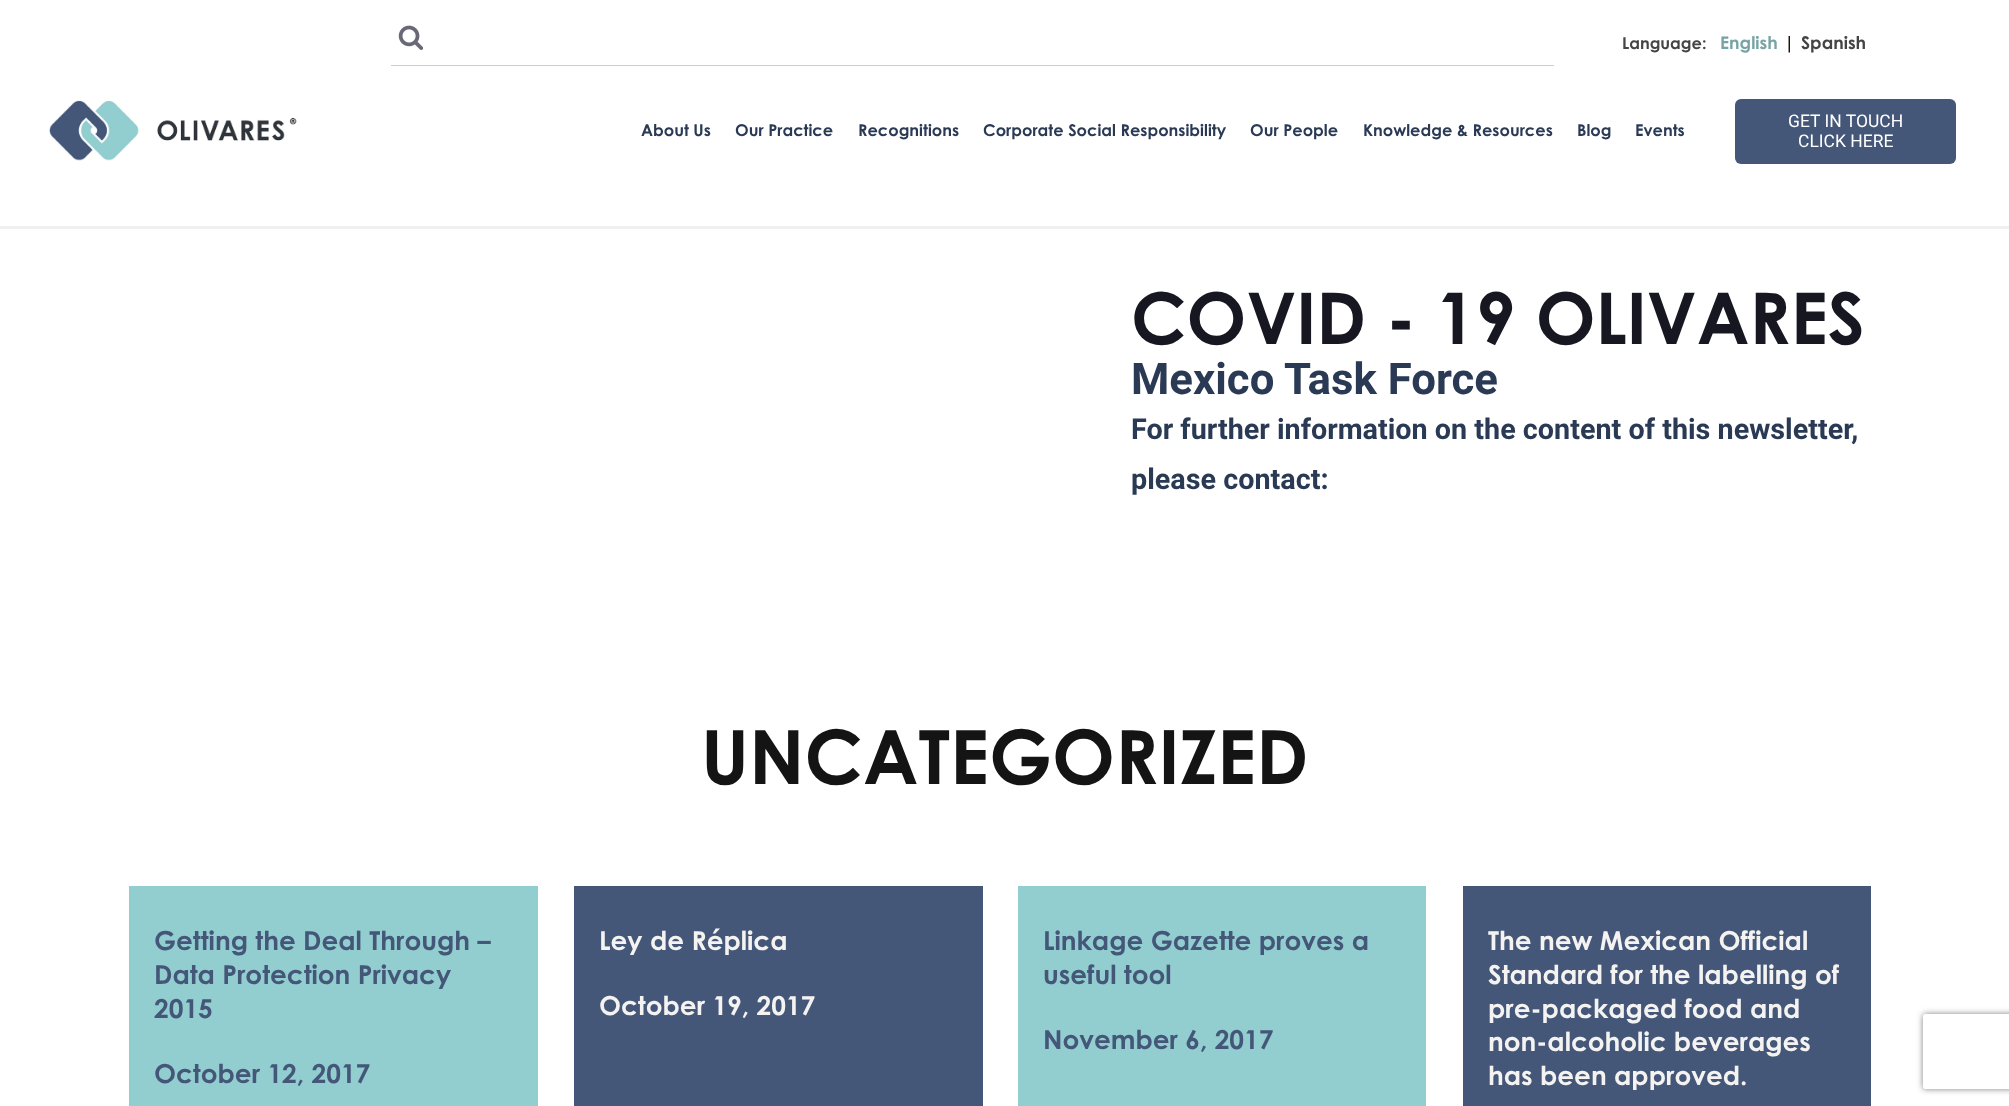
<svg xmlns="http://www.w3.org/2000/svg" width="2009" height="1106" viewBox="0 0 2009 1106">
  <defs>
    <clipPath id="clip1"><path d="M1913 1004H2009V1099H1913ZM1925.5 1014H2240.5C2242 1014 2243 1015 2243 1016.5V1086.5C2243 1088 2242 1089 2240.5 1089H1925.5C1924 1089 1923 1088 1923 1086.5V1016.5C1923 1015 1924 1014 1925.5 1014Z" clip-rule="evenodd"/></clipPath>
  </defs>
  <rect width="100%" height="100%" fill="#fff"/>
  <path d="M0 226h2009v3H0z" fill="#f0f0f0"/>
  <image x="398" y="25" width="26" height="25" href="img/1.png"/>
  <path d="M391 65h1163v1H391z" fill="#ccc"/>
  <image x="49" y="100" width="248" height="61" href="img/2.png"/>
  <rect x="1735" y="99" width="221" height="65" rx="6" fill="#445778"/>
  <path d="M129 886h409v220H129z" fill="#92cdcf"/>
  <path d="M574 886h409v220H574z" fill="#445778"/>
  <path d="M1018 886h408v220H1018z" fill="#92cdcf"/>
  <path d="M1463 886h408v220H1463z" fill="#445778"/>
  <g clip-path="url(#clip1)">
    <rect x="1923" y="1014" width="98" height="75" rx="2.5" fill="#808080" filter="blur(3px)"/>
  </g>
  <text x="1622" y="49" font-family="Century Gothic" font-size="16.25" font-weight="bold" fill="#444">Language:</text>
  <text x="1720" y="49" font-family="Century Gothic" font-size="17.5" font-weight="bold" fill="#78a3a5">English</text>
  <text x="1784" y="49" font-family="Century Gothic" font-size="17.5" font-weight="bold" fill="#000">|</text>
  <text x="1801" y="49" font-family="Century Gothic" font-size="17.5" font-weight="bold" fill="#444">Spanish</text>
  <g font-family="Century Gothic" font-size="16.25" font-weight="bold" fill="#2a3a55">
    <text x="641" y="136">About Us</text>
    <text x="735" y="136">Our Practice</text>
    <text x="858" y="136">Recognitions</text>
    <text x="983" y="136">Corporate Social Responsibility</text>
    <text x="1250" y="136">Our People</text>
    <text x="1363" y="136">Knowledge &amp; Resources</text>
    <text x="1577" y="136">Blog</text>
    <text x="1635" y="136">Events</text>
  </g>
  <g font-family="Roboto" font-size="17.5" fill="#fff">
    <text x="1788" y="127">GET IN TOUCH</text>
    <text x="1798" y="147">CLICK HERE</text>
  </g>
  <text x="1131" y="344" font-family="Century Gothic" font-size="71.25" font-weight="bold" fill="#171721">COVID - 19 OLIVARES</text>
  <text x="1131" y="394" font-family="Roboto" font-size="43.75" font-weight="bold" fill="#2a3a55">Mexico Task Force</text>
  <g font-family="Roboto" font-size="28.75" font-weight="bold" fill="#2a3a55">
    <text x="1131" y="439">For further information on the content of this newsletter,</text>
    <text x="1131" y="489">please contact:</text>
  </g>
  <text x="701" y="784" font-family="Century Gothic" font-size="75" font-weight="bold" fill="#151414">UNCATEGORIZED</text>
  <g font-family="Century Gothic" font-size="26.25" font-weight="bold" fill="#445778">
    <text x="154" y="950">Getting the Deal Through –</text>
    <text x="154" y="984">Data Protection Privacy</text>
    <text x="154" y="1018">2015</text>
    <text x="154" y="1083">October 12, 2017</text>
  </g>
  <g font-family="Century Gothic" font-size="26.25" font-weight="bold" fill="#f4f3f1">
    <text x="599" y="950">Ley de Réplica</text>
    <text x="599" y="1015">October 19, 2017</text>
  </g>
  <g font-family="Century Gothic" font-size="26.25" font-weight="bold" fill="#445778">
    <text x="1043" y="950">Linkage Gazette proves a</text>
    <text x="1043" y="984">useful tool</text>
    <text x="1043" y="1049">November 6, 2017</text>
  </g>
  <g font-family="Century Gothic" font-size="26.25" font-weight="bold" fill="#f4f3f1">
    <text x="1488" y="950">The new Mexican Official</text>
    <text x="1488" y="984">Standard for the labelling of</text>
    <text x="1488" y="1018">pre-packaged food and</text>
    <text x="1488" y="1051">non-alcoholic beverages</text>
    <text x="1488" y="1085">has been approved.</text>
  </g>
</svg>
